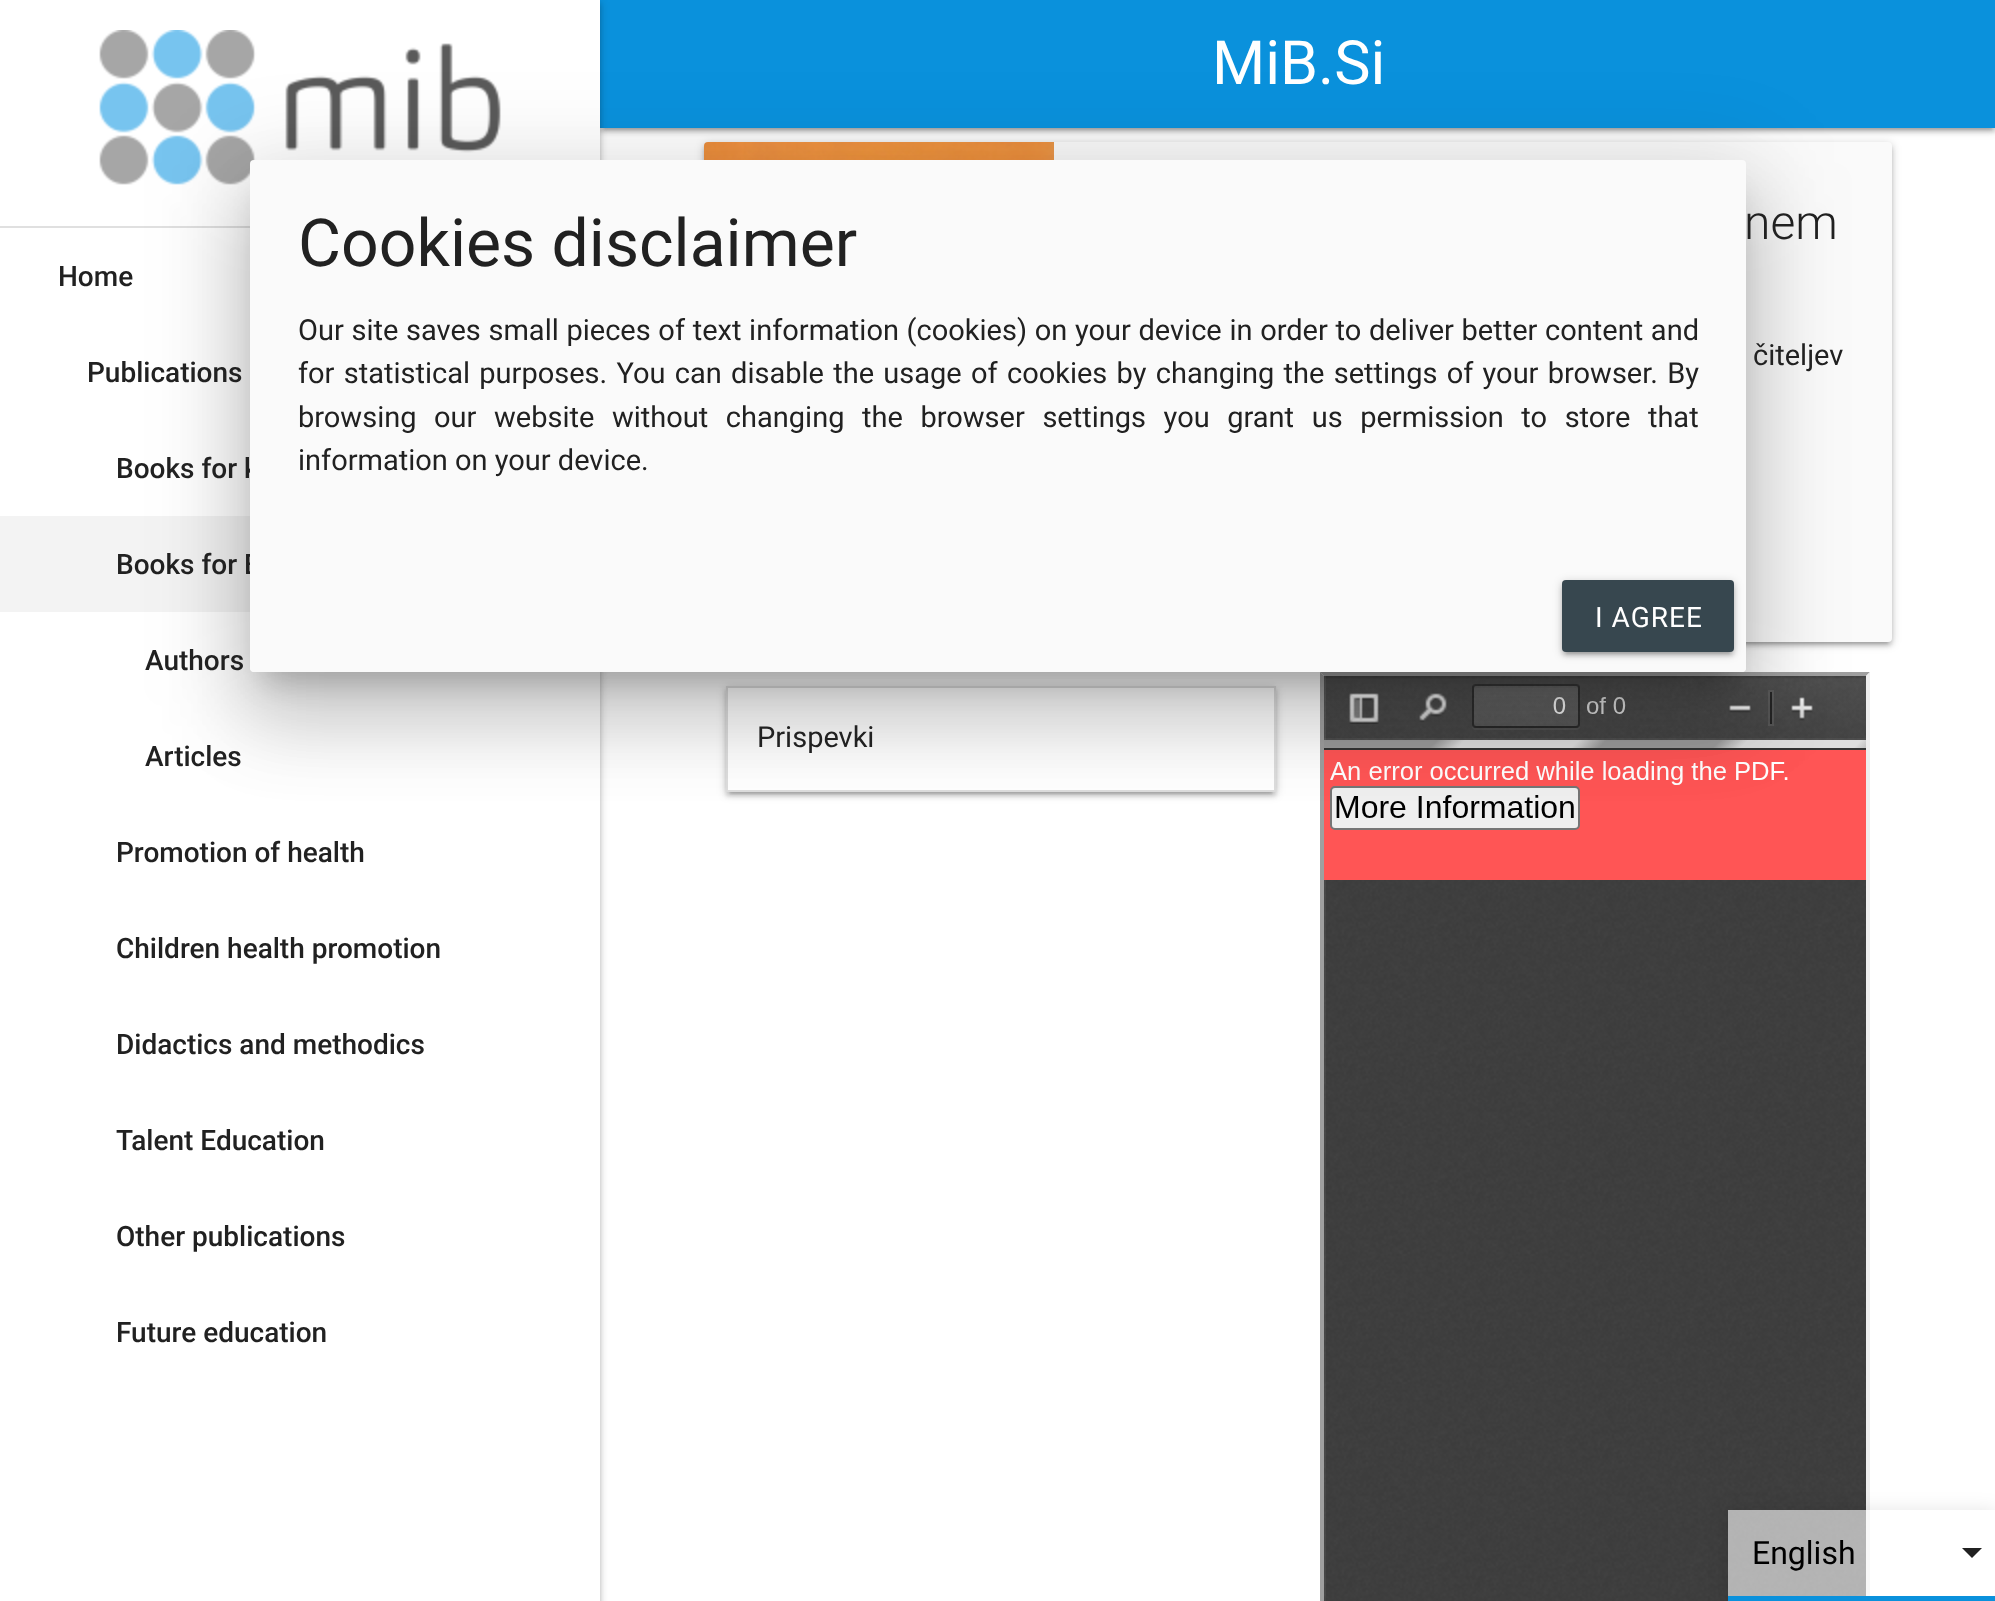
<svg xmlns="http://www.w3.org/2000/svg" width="1995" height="1601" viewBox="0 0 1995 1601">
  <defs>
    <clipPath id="clip1"><path d="M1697 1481H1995V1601H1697ZM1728 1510H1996V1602H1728Z" clip-rule="evenodd"/></clipPath>
    <clipPath id="clip2"><path d="M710 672H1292V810H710ZM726 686H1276V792H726Z" clip-rule="evenodd"/></clipPath>
    <clipPath id="clip3"><path d="M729 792h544v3H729z"/></clipPath>
    <clipPath id="clip4"><path d="M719 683H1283V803H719ZM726 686H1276V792H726Z" clip-rule="evenodd"/></clipPath>
  </defs>
  <rect width="100%" height="100%" fill="#fff"/>
  <rect x="704" y="144" width="1188" height="500" rx="4" fill="#00000033" filter="blur(5px)"/>
  <path d="M708 152h1180v492H708z" fill="#0000001f" filter="blur(1px)"/>
  <rect x="704" y="146" width="1188" height="500" rx="4" fill="#00000024" filter="blur(2px)"/>
  <rect x="704" y="142" width="1188" height="500" rx="4" fill="#fafafa"/>
  <image x="704" y="142" width="350" height="18" href="img/2.png"/>
  <path d="M600 2h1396v128H600z" fill="#00000033" filter="blur(5px)"/>
  <path d="M604 10h1388v120H604z" fill="#0000001f" filter="blur(1px)"/>
  <path d="M600 4h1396v128H600z" fill="#00000024" filter="blur(2px)"/>
  <path d="M600 0h1395v128H600z" fill="#0a91dc"/>
  <path d="M0 2h600v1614H0z" fill="#00000033" filter="blur(5px)"/>
  <path d="M0 4h600v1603H0z" fill="#00000024" filter="blur(2px)"/>
  <path d="M0 0h600v1601H0z" fill="#fff"/>
  <image x="99" y="30" width="402" height="155" href="img/1.png"/>
  <path d="M0 226h250v2H0z" fill="#e0e0e0"/>
  <path d="M0 516h250v96H0z" fill="#f3f3f3"/>
  <image x="1324" y="676" width="542" height="925" href="img/3.png"/>
  <path d="M1320 672H1870L1866 676H1324Z" fill="#9f9f9f"/>
  <path d="M1870 672V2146L1866 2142V676Z" fill="#eee"/>
  <g clip-path="url(#clip1)">
    <path d="M1728 1512h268v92H1728z" fill="#0000001f" filter="blur(10px)"/>
  </g>
  <path d="M1728 1510h142v86H1728z" fill="#ffffff9c"/>
  <path d="M1728 1596h267v5H1728z" fill="#0a91dc"/>
  <path d="M1962 1548L1972 1558L1982 1548Z" fill="#212121"/>
  <g clip-path="url(#clip2)">
    <path d="M726 688h550v106H726z" fill="#00000033" filter="blur(5px)"/>
  </g>
  <g clip-path="url(#clip3)">
    <path d="M730 696h542v98H730z" fill="#0000001f" filter="blur(1px)"/>
  </g>
  <g clip-path="url(#clip4)">
    <path d="M726 690h550v106H726z" fill="#00000024" filter="blur(2px)"/>
  </g>
  <path d="M726 686h550v2H726z" fill="#ddd"/>
  <path d="M1274 686h2v106H1274z" fill="#ddd"/>
  <path d="M726 686h2v106H726z" fill="#ddd"/>
  <path d="M728 790h546v2H728z" fill="#ddd"/>
  <path d="M1320 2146V672L1324 676V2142Z" fill="#9f9f9f"/>
  <path d="M264 196h1468v484H264z" fill="#00000033" filter="blur(15px)"/>
  <rect x="234" y="162" width="1528" height="544" rx="20" fill="#0000001f" filter="blur(46px)"/>
  <rect x="244" y="202" width="1508" height="524" rx="10" fill="#00000024" filter="blur(38px)"/>
  <text x="1212" y="84" font-family="Roboto" font-size="61" fill="#fff">MiB.Si</text>
  <g font-family="Roboto" font-size="28" font-weight="500" fill="#212121">
    <text x="58" y="286">Home</text>
    <text x="87" y="382">Publications</text>
    <text x="116" y="478">Books for k</text>
    <text x="116" y="574">Books for E</text>
    <text x="145" y="670">Authors</text>
    <text x="145" y="766">Articles</text>
    <text x="116" y="862">Promotion of health</text>
    <text x="116" y="958">Children health promotion</text>
    <text x="116" y="1054">Didactics and methodics</text>
    <text x="116" y="1150">Talent Education</text>
    <text x="116" y="1246">Other publications</text>
    <text x="116" y="1342">Future education</text>
  </g>
  <text x="1752" y="1564" font-family="Roboto" font-size="32" fill="#000">English</text>
  <text x="1744" y="239" font-family="Roboto" font-size="48" font-weight="300" fill="#212121">nem</text>
  <g font-family="Roboto" font-size="29" fill="#212121">
    <text x="1753" y="365" word-spacing="51">čiteljev</text>
    <text x="757" y="747">Prispevki</text>
  </g>
  <rect x="250" y="160" width="1496" height="512" rx="4" fill="#fafafa"/>
  <text x="298" y="266" font-family="Roboto" font-size="66.1" fill="#212121">Cookies disclaimer</text>
  <g font-family="Roboto" font-size="29" fill="#212121">
    <text x="298" y="340" word-spacing="0.5">Our site saves small pieces of text information (cookies) on your device in order to deliver better content and</text>
    <text x="298" y="383" word-spacing="2.1">for statistical purposes. You can disable the usage of cookies by changing the settings of your browser. By</text>
    <text x="298" y="427" word-spacing="10.4">browsing our website without changing the browser settings you grant us permission to store that</text>
    <text x="298" y="470">information on your device.</text>
  </g>
  <path d="M250 560H1746V668C1746 670 1744 672 1742 672H254C252 672 250 670 250 668Z" fill="#fafafa"/>
  <rect x="1562" y="582" width="172" height="72" rx="4" fill="#00000033" filter="blur(5px)"/>
  <path d="M1566 590h164v64H1566z" fill="#0000001f" filter="blur(1px)"/>
  <rect x="1562" y="584" width="172" height="72" rx="4" fill="#00000024" filter="blur(2px)"/>
  <rect x="1562" y="580" width="172" height="72" rx="4" fill="#37474f"/>
  <text x="1595" y="627" font-family="Roboto" font-size="28" letter-spacing="1" fill="#fff">I AGREE</text>
</svg>
